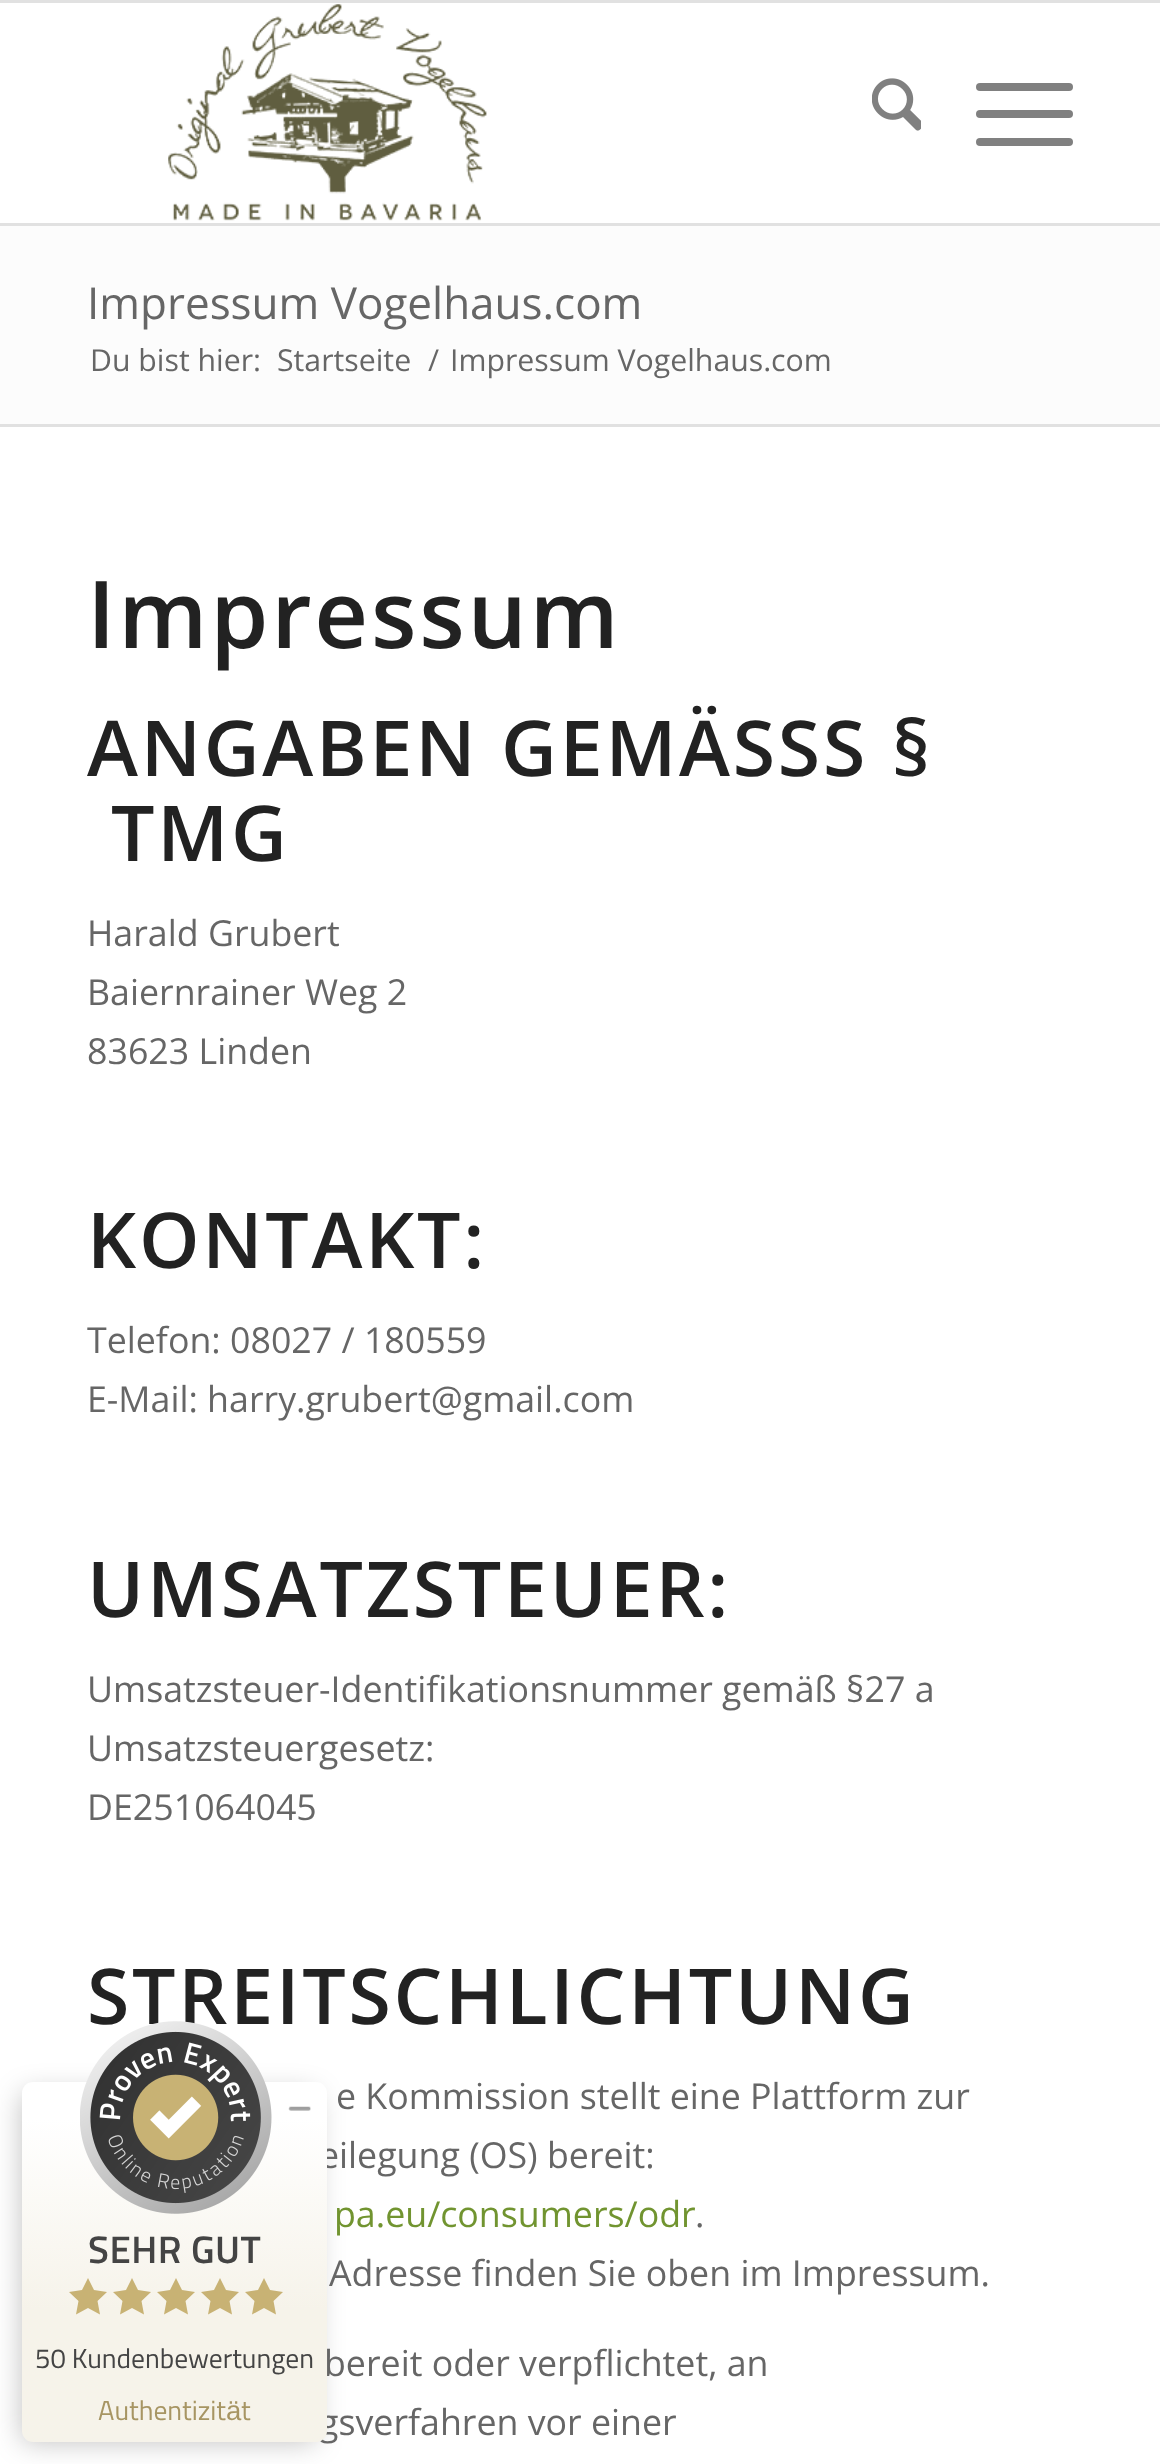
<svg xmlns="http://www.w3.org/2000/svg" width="1160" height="2464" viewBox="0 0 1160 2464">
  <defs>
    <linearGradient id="g1" gradientUnits="userSpaceOnUse" x1="175" y1="2442" x2="175" y2="2082"><stop offset="0.37" stop-color="#f6f3ea"/><stop offset="0.9" stop-color="#fff"/></linearGradient>
  </defs>
  <rect width="100%" height="100%" fill="#fff"/>
  <path d="M0 0h1160v3H0z" fill="#e1e1e1"/>
  <path d="M0 223h1160v3H0z" fill="#e1e1e1"/>
  <image x="168" y="4" width="319" height="217" href="img/1.png"/>
  <image x="872" y="78" width="49" height="53" href="img/2.png"/>
  <rect x="976" y="110" width="97" height="8" rx="4" fill="#808080"/>
  <rect x="976" y="83" width="97" height="8" rx="4" fill="#808080"/>
  <rect x="976" y="138" width="97" height="8" rx="4" fill="#808080"/>
  <path d="M0 226h1160v198H0z" fill="#fcfcfc"/>
  <path d="M0 424h1160v3H0z" fill="#e1e1e1"/>
  <rect x="22" y="2093" width="294" height="349" rx="6" fill="#00000040" filter="blur(14px)"/>
  <text x="87" y="319" font-family="Open Sans" font-size="44" fill="#666">Impressum Vogelhaus.com</text>
  <g font-family="Open Sans" font-size="30.25" fill="#666">
    <text x="90" y="371">Du bist hier:</text>
    <text x="277" y="371">Startseite</text>
    <text x="428" y="371">/</text>
    <text x="450" y="371">Impressum Vogelhaus.com</text>
  </g>
  <text x="87" y="648" font-family="Open Sans" font-size="93.5" font-weight="600" letter-spacing="2.75" fill="#222">Impressum</text>
  <g font-family="Open Sans" font-size="77" font-weight="600" letter-spacing="2.75" fill="#222">
    <text x="87" y="776">ANGABEN GEMÄSS</text>
    <text x="823" y="776" word-spacing="1">S §</text>
    <text x="111" y="861">TMG</text>
  </g>
  <g font-family="Open Sans" font-size="35.75" fill="#666">
    <text x="87" y="946">Harald Grubert</text>
    <text x="87" y="1005">Baiernrainer Weg 2</text>
    <text x="87" y="1064">83623 Linden</text>
  </g>
  <text x="87" y="1268" font-family="Open Sans" font-size="77" font-weight="600" letter-spacing="2.75" fill="#222">KONTAKT:</text>
  <g font-family="Open Sans" font-size="35.75" fill="#666">
    <text x="87" y="1353">Telefon: 08027 / 180559</text>
    <text x="87" y="1412">E-Mail: harry.grubert@gmail.com</text>
  </g>
  <text x="87" y="1617" font-family="Open Sans" font-size="77" font-weight="600" letter-spacing="2.75" fill="#222">UMSATZSTEUER:</text>
  <g font-family="Open Sans" font-size="35.75" fill="#666">
    <text x="87" y="1702">Umsatzsteuer-Identifikationsnummer gemäß §27 a</text>
    <text x="87" y="1761">Umsatzsteuergesetz:</text>
    <text x="87" y="1820">DE251064045</text>
  </g>
  <text x="87" y="2024" font-family="Open Sans" font-size="77" font-weight="600" letter-spacing="2.75" fill="#222">STREITSCHLICHTUNG</text>
  <g font-family="Open Sans" font-size="35.75" fill="#666">
    <text x="336" y="2109">e Kommission stellt eine Plattform zur</text>
    <text x="319" y="2168">eilegung (OS) bereit:</text>
  </g>
  <text x="334" y="2227" font-family="Open Sans" font-size="35.75" fill="#719430">pa.eu/consumers/odr</text>
  <g font-family="Open Sans" font-size="35.75" fill="#666">
    <text x="695" y="2227">.</text>
    <text x="329" y="2286">Adresse finden Sie oben im Impressum.</text>
    <text x="324" y="2376">bereit oder verpflichtet, an</text>
    <text x="319" y="2435">gsverfahren vor einer</text>
  </g>
  <rect x="22" y="2082" width="305" height="360" rx="11" fill="url(#g1)"/>
  <image x="80" y="2021" width="192" height="193" href="img/3.png"/>
  <image x="288" y="2106" width="23" height="5" href="img/4.png"/>
  <text x="88" y="2263" font-family="Titillium Web" font-size="38.5" font-weight="600" letter-spacing="0.5" fill="#444">SEHR GUT</text>
  <path d="M88 2278L94 2290L107 2292L97.5 2301L100 2314.5L88 2308L76 2314.5L78.5 2301L69 2292L82 2290Z" fill="#c8b274"/>
  <path d="M132 2278L138 2290L151 2292L141.5 2301L144 2314.5L132 2308L120 2314.5L122.5 2301L113 2292L126 2290Z" fill="#c8b274"/>
  <path d="M176 2278L182 2290L195 2292L185.5 2301L188 2314.5L176 2308L164 2314.5L166.5 2301L157 2292L170 2290Z" fill="#c8b274"/>
  <path d="M220 2278L226 2290L239 2292L229.5 2301L232 2314.5L220 2308L208 2314.5L210.5 2301L201 2292L214 2290Z" fill="#c8b274"/>
  <path d="M264 2278L270 2290L283 2292L273.5 2301L276 2314.5L264 2308L252 2314.5L254.5 2301L245 2292L258 2290Z" fill="#c8b274"/>
  <text x="35" y="2368" font-family="Titillium Web" font-size="27.5" fill="#444">50 Kundenbewertungen</text>
  <text x="98" y="2420" font-family="Titillium Web" font-size="27.5" fill="#a79563">Authentizit</text>
  <text x="226" y="2420" font-family="Liberation Sans" font-size="27.5" fill="#a79563">ä</text>
  <text x="241" y="2420" font-family="Titillium Web" font-size="27.5" fill="#a79563">t</text>
</svg>
